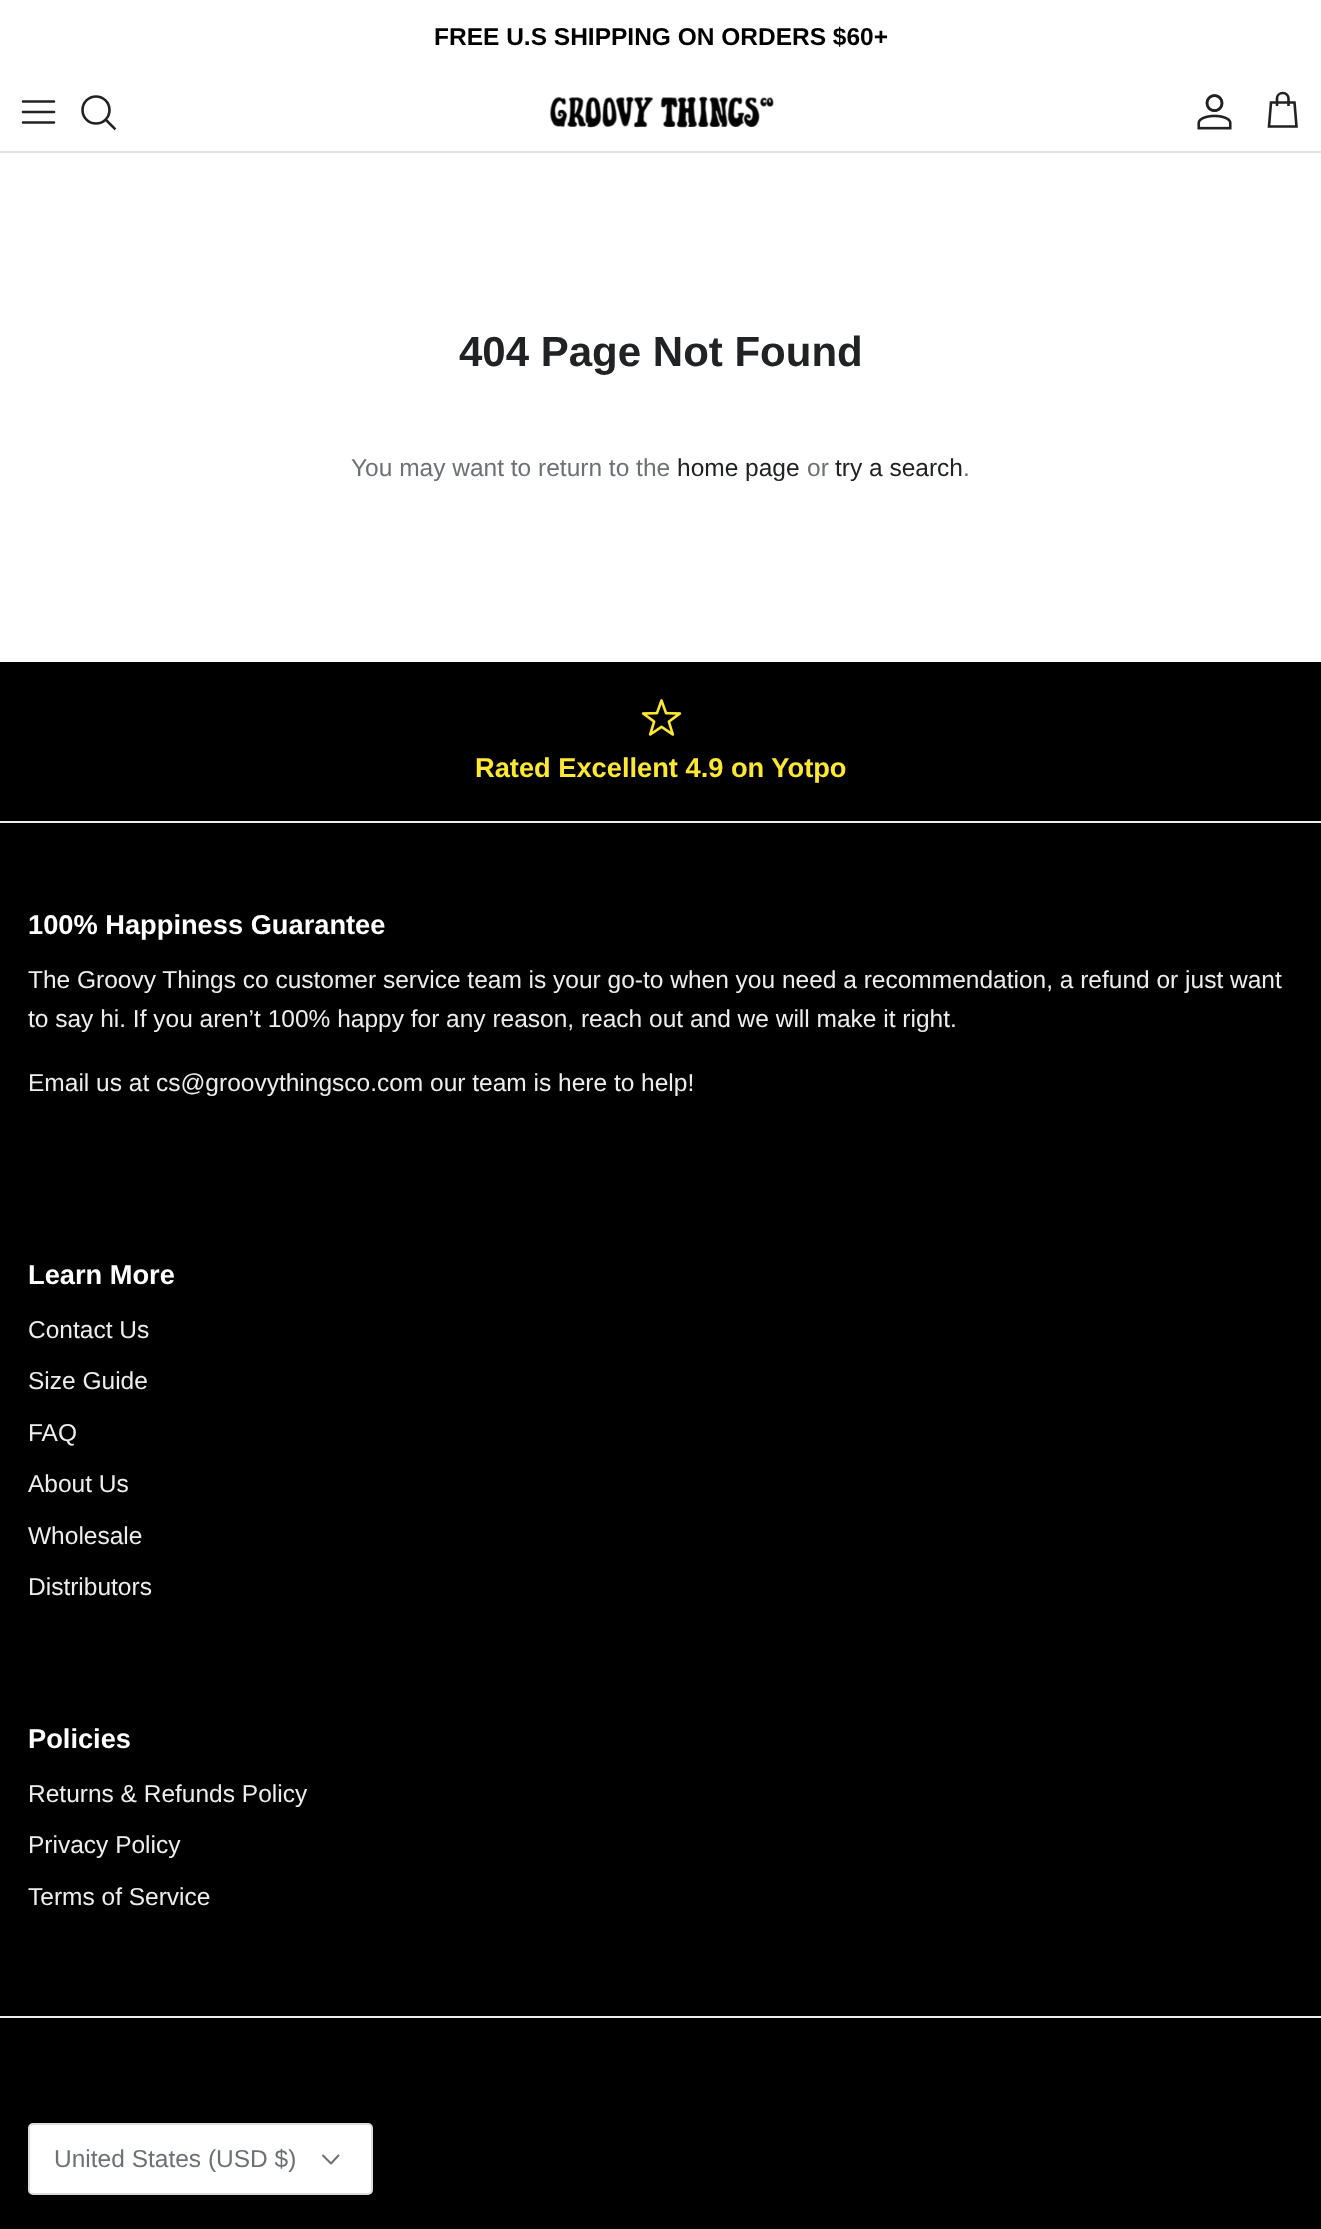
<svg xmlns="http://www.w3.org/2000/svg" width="1321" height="2229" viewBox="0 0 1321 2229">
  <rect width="100%" height="100%" fill="#fff"/>
  <path d="M0 151h1321v2H0z" fill="#e2e2e2"/>
  <path d="M23 112H54M23 101.5H54M23 122.5H54" fill="none" stroke="#202223" stroke-width="2.6" stroke-linecap="round" stroke-linejoin="round"/>
  <circle cx="96" cy="110" r="13.5" fill="none" stroke="#202223" stroke-width="2.6"/>
  <path d="M106.5 120.5L114.5 128.5" fill="none" stroke="#202223" stroke-width="2.6" stroke-linecap="square"/>
  <image x="549" y="96" width="225" height="32" href="img/1.png"/>
  <image x="1197" y="94" width="35" height="36" href="img/2.png"/>
  <path d="M1288.5 106V98.5C1288.5 95.5 1286 93 1283 93C1279.5 93 1277 95.5 1277 98.5V106M1271 102.5H1294.5L1296.5 126.5H1269Z" fill="none" stroke="#202223" stroke-width="2.6"/>
  <path d="M0 662h1321v1567H0z" fill="#000"/>
  <image x="641" y="699" width="41" height="37" href="img/3.png"/>
  <path d="M0 821h1321v2H0z" fill="#eee"/>
  <path d="M0 2016h1321v2H0z" fill="#eee"/>
  <rect x="29" y="2124" width="343" height="70" rx="4" fill="#fff" stroke="#dbdcdd" stroke-width="2"/>
  <path d="M323 2155.5L331 2163.5L338.5 2155.5" fill="none" stroke="#6d7175" stroke-width="2" stroke-linecap="round" stroke-linejoin="round"/>
  <text x="434" y="45" font-family="Liberation Sans" font-size="24.5" font-weight="bold" fill="#000">FREE U.S SHIPPING ON ORDERS $60+</text>
  <text x="459" y="366" font-family="Liberation Sans" font-size="42" font-weight="bold" fill="#202223">404 Page Not Found</text>
  <text x="351" y="476" font-family="Liberation Sans" font-size="24.5" fill="#6d7175">You may want to return to the</text>
  <text x="677" y="476" font-family="Liberation Sans" font-size="24.5" fill="#202223">home page</text>
  <text x="807" y="476" font-family="Liberation Sans" font-size="24.5" fill="#6d7175">or</text>
  <text x="835" y="476" font-family="Liberation Sans" font-size="24.5" fill="#202223">try a search</text>
  <text x="963" y="476" font-family="Liberation Sans" font-size="24.5" fill="#6d7175">.</text>
  <text x="475" y="777" font-family="Liberation Sans" font-size="27.25" font-weight="bold" fill="#fce732">Rated Excellent 4.9 on Yotpo</text>
  <text x="28" y="934" font-family="Liberation Sans" font-size="27.25" font-weight="bold" fill="#fff">100% Happiness Guarantee</text>
  <g font-family="Liberation Sans" font-size="24.5" fill="#ededed">
    <text x="28" y="988">The Groovy Things co customer service team is your go-to when you need a recommendation, a refund or just want</text>
    <text x="28" y="1027">to say hi. If you aren’t 100% happy for any reason, reach out and we will make it right.</text>
    <text x="28" y="1091">Email us at cs@groovythingsco.com our team is here to help!</text>
  </g>
  <text x="28" y="1284" font-family="Liberation Sans" font-size="27.25" font-weight="bold" fill="#fff">Learn More</text>
  <g font-family="Liberation Sans" font-size="24.5" fill="#ededed">
    <text x="28" y="1338">Contact Us</text>
    <text x="28" y="1389">Size Guide</text>
    <text x="28" y="1441">FAQ</text>
    <text x="28" y="1492">About Us</text>
    <text x="28" y="1544">Wholesale</text>
    <text x="28" y="1595">Distributors</text>
  </g>
  <text x="28" y="1748" font-family="Liberation Sans" font-size="27.25" font-weight="bold" fill="#fff">Policies</text>
  <g font-family="Liberation Sans" font-size="24.5" fill="#ededed">
    <text x="28" y="1802">Returns &amp; Refunds Policy</text>
    <text x="28" y="1853">Privacy Policy</text>
    <text x="28" y="1905">Terms of Service</text>
  </g>
  <text x="54" y="2167" font-family="Liberation Sans" font-size="24.5" fill="#6d7175">United States (USD $)</text>
</svg>
